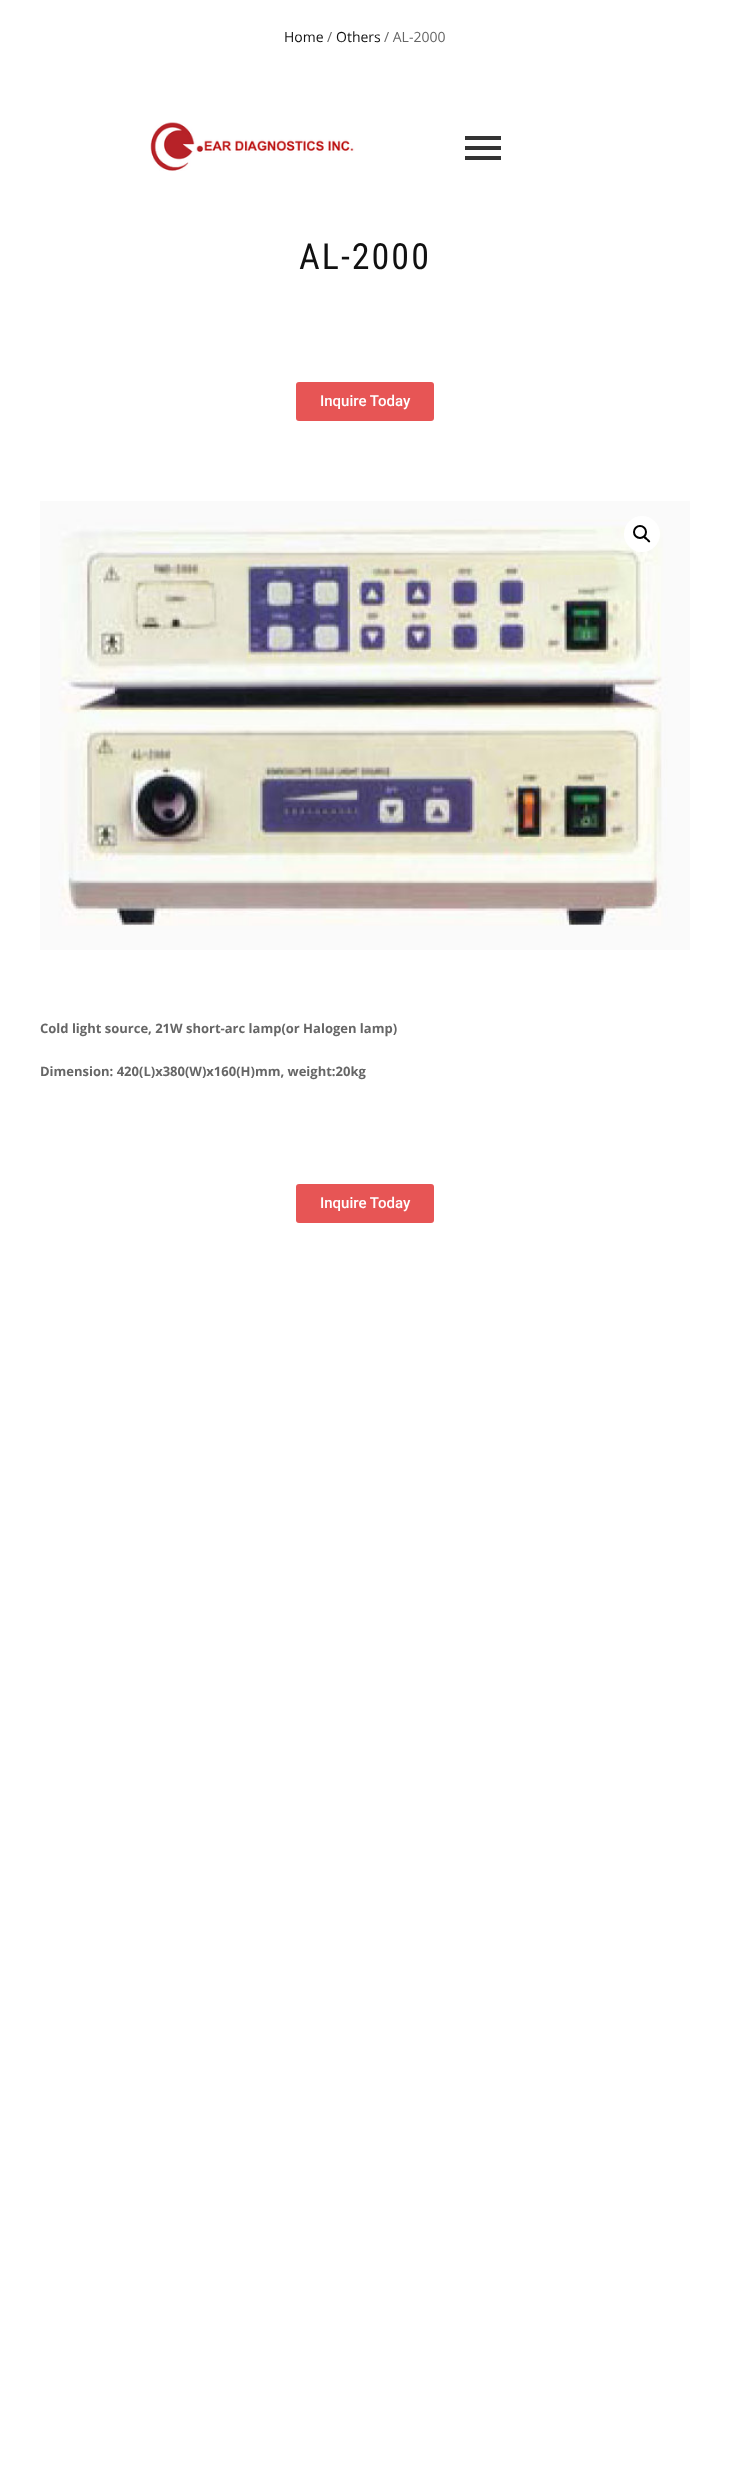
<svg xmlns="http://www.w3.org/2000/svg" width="730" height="2486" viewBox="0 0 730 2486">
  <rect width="100%" height="100%" fill="#fff"/>
  <image x="150" y="122" width="205" height="49" href="img/1.png"/>
  <path d="M465 136h36v4H465z" fill="#333"/>
  <path d="M465 146h36v4H465z" fill="#333"/>
  <path d="M465 156h36v4H465z" fill="#333"/>
  <rect x="296" y="382" width="138" height="39" rx="3" fill="#e75555"/>
  <image x="40" y="501" width="650" height="449" href="img/2.png"/>
  <circle cx="642" cy="534" r="18" fill="#fff"/>
  <circle cx="640" cy="532" r="6" fill="none" stroke="#000" stroke-width="2"/>
  <path d="M644 536.5C645.5 535.5 647 538 647.5 538.5C648.5 539.5 651 541 650 542C648.5 543.5 647 540.5 646.5 540C645.5 539.5 643 538 644 536.5Z" fill="#000"/>
  <rect x="296" y="1184" width="138" height="39" rx="3" fill="#e75555"/>
  <text x="284" y="42" font-family="Open Sans" font-size="14" fill="#111">Home</text>
  <text x="327" y="42" font-family="Open Sans" font-size="14" fill="#666">/</text>
  <text x="336" y="42" font-family="Open Sans" font-size="14" fill="#111">Others</text>
  <text x="384" y="42" font-family="Open Sans" font-size="14" fill="#666">/ AL-2000</text>
  <text x="299" y="269" font-family="Roboto Condensed" font-size="36" letter-spacing="2" fill="#111">AL-2000</text>
  <text x="320" y="406" font-family="Roboto" font-size="15" font-weight="500" fill="#fff">Inquire Today</text>
  <g font-family="Open Sans" font-size="13" font-weight="bold" fill="#666">
    <text x="40" y="1033">Cold light source, 21W short-arc lamp(or Halogen lamp)</text>
    <text x="40" y="1076">Dimension: 420(L)x380(W)x160(H)mm, weight:20kg</text>
  </g>
  <text x="320" y="1208" font-family="Roboto" font-size="15" font-weight="500" fill="#fff">Inquire Today</text>
</svg>
